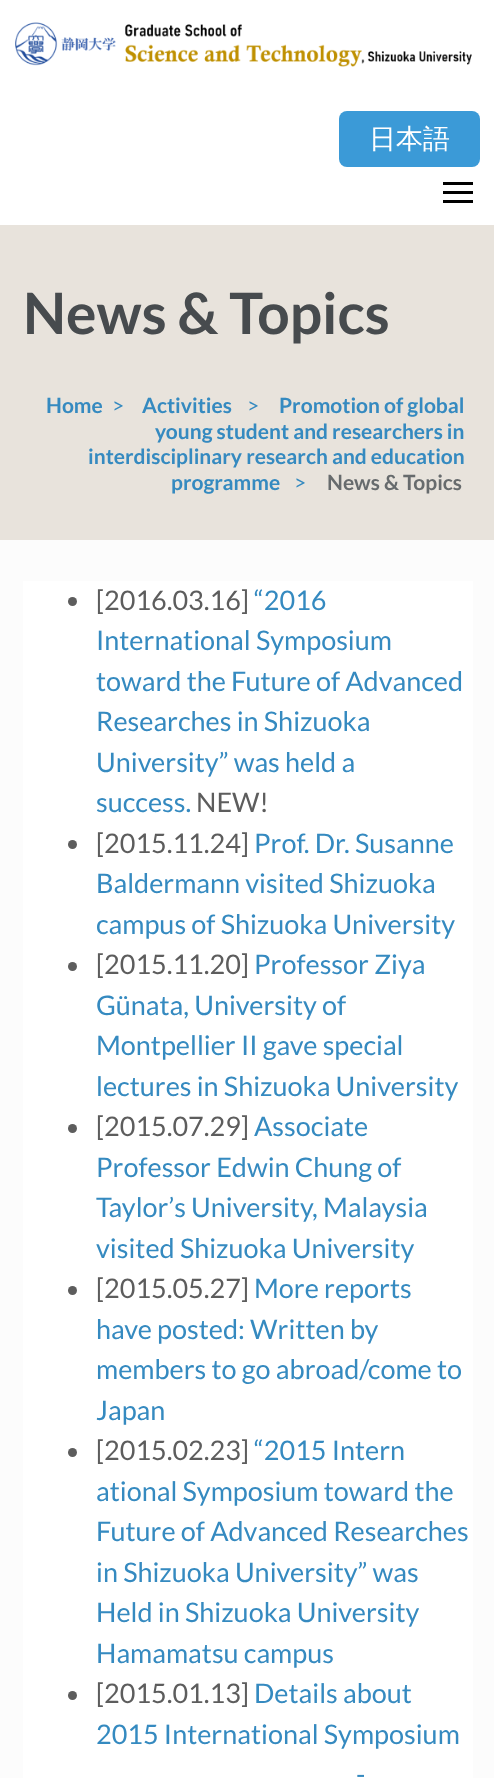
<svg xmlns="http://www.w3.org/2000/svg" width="494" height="1778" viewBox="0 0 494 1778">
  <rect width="100%" height="100%" fill="#e8e3dc"/>
  <path d="M0 0h494v225H0z" fill="#fff"/>
  <path d="M443 182h30v3H443z" fill="#000"/>
  <path d="M443 191h30v3H443z" fill="#000"/>
  <path d="M443 200h30v3H443z" fill="#000"/>
  <image x="15" y="22" width="457" height="45" href="img/1.png"/>
  <rect x="339" y="111" width="141" height="56" rx="8" fill="#3b9ad7"/>
  <path d="M0 540h494v1238H0z" fill="#fcfcfc"/>
  <path d="M23 581h450v1197H23z" fill="#fff"/>
  <circle cx="72.5" cy="601.5" r="4.5" fill="#5d5d5d"/>
  <circle cx="72.5" cy="844.5" r="4.5" fill="#5d5d5d"/>
  <circle cx="72.5" cy="966.5" r="4.5" fill="#5d5d5d"/>
  <circle cx="72.5" cy="1128.5" r="4.5" fill="#5d5d5d"/>
  <circle cx="72.5" cy="1290.5" r="4.5" fill="#5d5d5d"/>
  <circle cx="72.5" cy="1452.5" r="4.5" fill="#5d5d5d"/>
  <circle cx="72.5" cy="1695.5" r="4.5" fill="#5d5d5d"/>
  <text x="369" y="148" font-family="WenQuanYi Zen Hei" font-size="27" font-weight="500" fill="#fff">日本語</text>
  <text x="23" y="334" font-family="Lato" font-size="57" font-weight="bold" fill="#474b4e">News &amp; Topics</text>
  <text x="46" y="413" font-family="Lato" font-size="21" font-weight="bold" fill="#358ac0">Home</text>
  <text x="112" y="413" font-family="Lato" font-size="21" fill="#358ac0">&gt;</text>
  <text x="142" y="413" font-family="Lato" font-size="21" font-weight="bold" fill="#358ac0">Activities</text>
  <text x="247" y="413" font-family="Lato" font-size="21" fill="#358ac0">&gt;</text>
  <g font-family="Lato" font-size="21" font-weight="bold" fill="#358ac0">
    <text x="279" y="413">Promotion of global</text>
    <text x="155" y="439">young student and researchers in</text>
    <text x="88" y="464">interdisciplinary research and education</text>
    <text x="171" y="490">programme</text>
  </g>
  <text x="294" y="490" font-family="Lato" font-size="21" fill="#358ac0">&gt;</text>
  <text x="327" y="490" font-family="Lato" font-size="21" font-weight="bold" fill="#676b6d">News &amp; Topics</text>
  <text x="96" y="610" font-family="Lato" font-size="27" fill="#5d5d5d">[2016.03.16]</text>
  <g font-family="Lato" font-size="27" fill="#358ac0">
    <text x="254" y="610">“2016</text>
    <text x="96" y="650">International Symposium</text>
    <text x="96" y="691">toward the Future of Advanced</text>
    <text x="96" y="731">Researches in Shizuoka</text>
    <text x="96" y="772">University” was held a</text>
    <text x="96" y="812">success.</text>
  </g>
  <g font-family="Lato" font-size="27" fill="#5d5d5d">
    <text x="196" y="812">NEW!</text>
    <text x="96" y="853">[2015.11.24]</text>
  </g>
  <g font-family="Lato" font-size="27" fill="#358ac0">
    <text x="254" y="853">Prof. Dr. Susanne</text>
    <text x="96" y="893">Baldermann visited Shizuoka</text>
    <text x="96" y="934">campus of Shizuoka University</text>
  </g>
  <text x="96" y="974" font-family="Lato" font-size="27" fill="#5d5d5d">[2015.11.20]</text>
  <g font-family="Lato" font-size="27" fill="#358ac0">
    <text x="254" y="974">Professor Ziya</text>
    <text x="96" y="1015">Günata, University of</text>
    <text x="96" y="1055">Montpellier II gave special</text>
    <text x="96" y="1096">lectures in Shizuoka University</text>
  </g>
  <text x="96" y="1136" font-family="Lato" font-size="27" fill="#5d5d5d">[2015.07.29]</text>
  <g font-family="Lato" font-size="27" fill="#358ac0">
    <text x="254" y="1136">Associate</text>
    <text x="96" y="1177">Professor Edwin Chung of</text>
    <text x="96" y="1217">Taylor’s University, Malaysia</text>
    <text x="96" y="1258">visited Shizuoka University</text>
  </g>
  <text x="96" y="1298" font-family="Lato" font-size="27" fill="#5d5d5d">[2015.05.27]</text>
  <g font-family="Lato" font-size="27" fill="#358ac0">
    <text x="254" y="1298">More reports</text>
    <text x="96" y="1339">have posted: Written by</text>
    <text x="96" y="1379">members to go abroad/come to</text>
    <text x="96" y="1420">Japan</text>
  </g>
  <text x="96" y="1460" font-family="Lato" font-size="27" fill="#5d5d5d">[2015.02.23]</text>
  <g font-family="Lato" font-size="27" fill="#358ac0">
    <text x="254" y="1460">“2015 Intern</text>
    <text x="96" y="1501">ational Symposium toward the</text>
    <text x="96" y="1541">Future of Advanced Researches</text>
    <text x="96" y="1582">in Shizuoka University” was</text>
    <text x="96" y="1622">Held in Shizuoka University</text>
    <text x="96" y="1663">Hamamatsu campus</text>
  </g>
  <text x="96" y="1703" font-family="Lato" font-size="27" fill="#5d5d5d">[2015.01.13]</text>
  <g font-family="Lato" font-size="27" fill="#358ac0">
    <text x="254" y="1703">Details about</text>
    <text x="96" y="1744">2015 International Symposium</text>
    <text x="356" y="1784">-</text>
  </g>
</svg>
